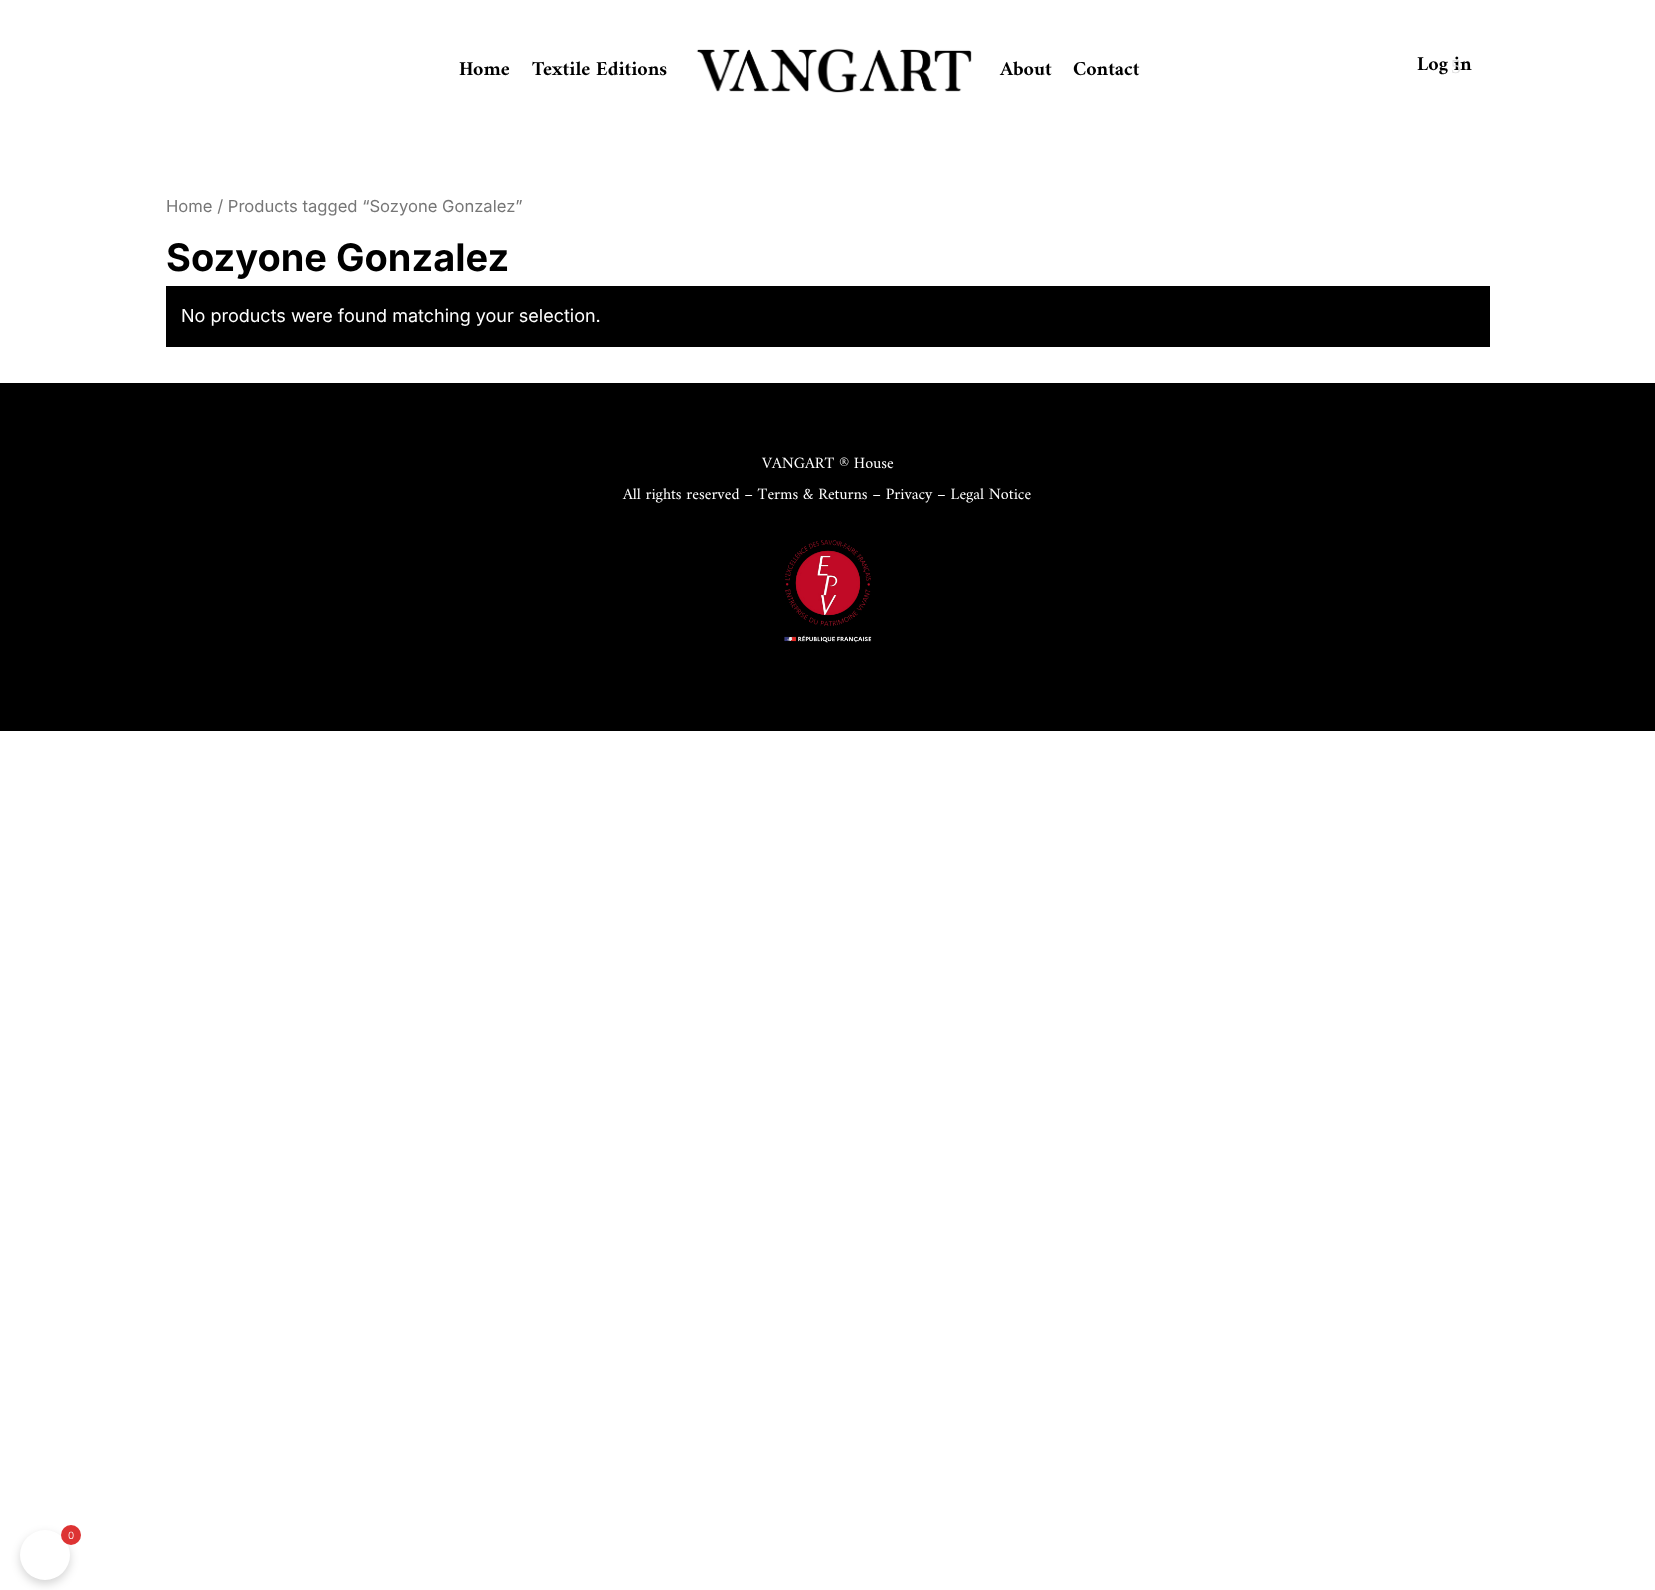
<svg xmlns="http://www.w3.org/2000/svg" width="1655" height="1590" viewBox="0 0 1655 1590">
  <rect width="100%" height="100%" fill="#fff"/>
  <image x="696" y="48" width="276" height="45" href="img/1.png"/>
  <path d="M166 286h1324v61H166z" fill="#000"/>
  <path d="M0 383h1655v348H0z" fill="#000"/>
  <image x="784" y="540" width="88" height="103" href="img/2.png"/>
  <rect x="20" y="1534" width="50" height="50" rx="25" fill="#0000002b" filter="blur(5px)"/>
  <circle cx="45" cy="1555" r="25" fill="#fff"/>
  <circle cx="71" cy="1535" r="10" fill="#d33"/>
  <g font-family="Amiri" font-size="20" font-weight="bold" fill="#000">
    <text x="459" y="75">Home</text>
    <text x="532" y="75">Textile Editions</text>
    <text x="1000" y="75">About</text>
    <text x="1073" y="75">Contact</text>
    <text x="1417" y="70">Log in</text>
  </g>
  <text x="1451" y="73" font-family="Liberation Serif" font-size="20" fill="#dfdfdf">5</text>
  <text x="166" y="212" font-family="Inter" font-size="16.6" fill="#767676">Home / Products tagged “Sozyone Gonzalez”</text>
  <text x="166" y="271" font-family="Inter" font-size="38" font-weight="bold" fill="#000">Sozyone Gonzalez</text>
  <text x="181" y="322" font-family="Inter" font-size="18" fill="#fff">No products were found matching your selection.</text>
  <g font-family="Amiri" font-size="16" fill="#fff">
    <text x="762" y="468">VANGART ® House</text>
    <text x="623" y="499">All rights reserved – Terms &amp; Returns – Privacy – Legal Notice</text>
  </g>
  <text x="68" y="1539" font-family="Inter" font-size="10" font-weight="300" fill="#fff">0</text>
</svg>
